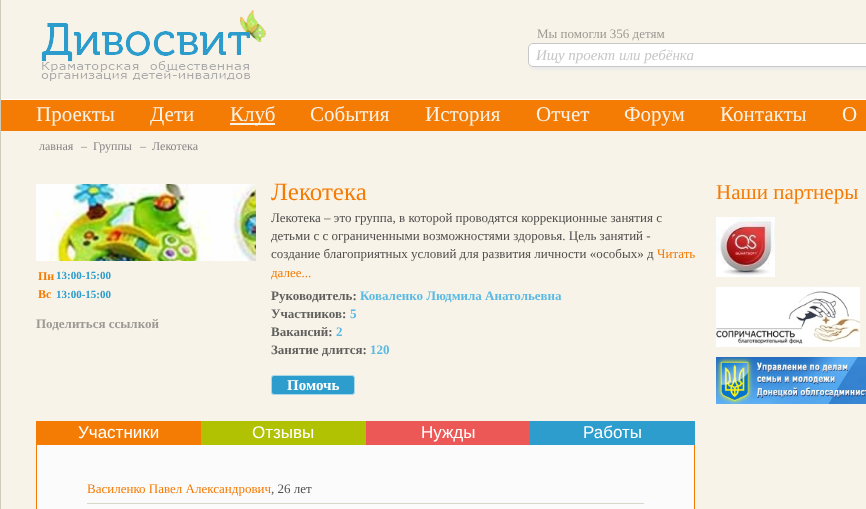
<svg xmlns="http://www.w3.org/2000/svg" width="866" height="509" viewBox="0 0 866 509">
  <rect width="100%" height="100%" fill="#f7f3e8"/>
  <path d="M0 0h1v509H0z" fill="#d0cab8"/>
  <image x="41" y="10" width="225" height="71" href="img/1.png"/>
  <rect x="529" y="44" width="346" height="26" rx="6" fill="#ebebeb" filter="blur(1px)"/>
  <rect x="528.5" y="43.5" width="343" height="23" rx="4.5" fill="#fff" stroke="#c7c7c7"/>
  <path d="M1 100h865v31H1z" fill="#f47b04"/>
  <path d="M1 99h865v1H1z" fill="#fff"/>
  <path d="M230 123h45v2H230z" fill="#f7f3e8"/>
  <image x="36" y="184" width="220" height="77" href="img/2.png"/>
  <rect x="271.5" y="375.5" width="83" height="19" rx="2.5" fill="#2c9dcc" stroke="#aad7e9"/>
  <path d="M36 421h165v24H36z" fill="#f47b04"/>
  <path d="M201 421h165v24H201z" fill="#b0c202"/>
  <path d="M366 421h164v24H366z" fill="#ec5856"/>
  <path d="M530 421h165v24H530z" fill="#2c9dcc"/>
  <path d="M37 445h657v64H37z" fill="#fcfbfb"/>
  <path d="M694 445h1v64H694z" fill="#f47b04"/>
  <path d="M36 445h1v64H36z" fill="#f47b04"/>
  <path d="M87 503h557v1H87z" fill="#d6d8ca"/>
  <image x="716" y="217" width="59" height="60" href="img/3.png"/>
  <image x="716" y="287" width="144" height="60" href="img/4.png"/>
  <image x="716" y="357" width="150" height="47" href="img/5.png"/>
  <text x="537" y="38" font-family="Liberation Serif" font-size="13" fill="#9c9a94">Мы помогли 356 детям</text>
  <text x="536" y="60" font-family="Liberation Serif" font-size="15" font-style="italic" fill="#c7c7c7">Ищу проект или ребёнка</text>
  <g font-family="Liberation Serif" font-size="21" fill="#f7f3e8">
    <text x="36" y="121">Проекты</text>
    <text x="150" y="121">Дети</text>
    <text x="230" y="121">Клуб</text>
    <text x="310" y="121">События</text>
    <text x="425" y="121">История</text>
    <text x="536" y="121">Отчет</text>
    <text x="624" y="121">Форум</text>
    <text x="720" y="121">Контакты</text>
    <text x="842" y="121">О</text>
  </g>
  <g font-family="Liberation Serif" font-size="12" fill="#888686">
    <text x="39" y="150">лавная</text>
    <text x="81" y="150">–</text>
    <text x="93" y="150">Группы</text>
    <text x="140" y="150">–</text>
    <text x="152" y="150">Лекотека</text>
  </g>
  <text x="38" y="280" font-family="Liberation Serif" font-size="12" font-weight="bold" fill="#f47b04">Пн</text>
  <text x="56" y="279" font-family="Liberation Serif" font-size="11" font-weight="bold" fill="#2c9dcc">13:00-15:00</text>
  <text x="38" y="298" font-family="Liberation Serif" font-size="12" font-weight="bold" fill="#f47b04">Вс</text>
  <text x="56" y="298" font-family="Liberation Serif" font-size="11" font-weight="bold" fill="#2c9dcc">13:00-15:00</text>
  <text x="36" y="328" font-family="Liberation Serif" font-size="13" font-weight="bold" fill="#9c9a94">Поделиться ссылкой</text>
  <text x="271" y="200" font-family="Liberation Serif" font-size="25" fill="#f47b04">Лекотека</text>
  <g font-family="Liberation Serif" font-size="13" fill="#4f4e4c">
    <text x="271" y="222">Лекотека – это группа, в которой проводятся коррекционные занятия с</text>
    <text x="271" y="240">детьми с с ограниченными возможностями здоровья. Цель занятий -</text>
    <text x="271" y="258">создание благоприятных условий для развития личности «особых» д</text>
  </g>
  <g font-family="Liberation Serif" font-size="13" fill="#f47b04">
    <text x="657" y="258">Читать</text>
    <text x="271" y="277">далее...</text>
  </g>
  <text x="271" y="300" font-family="Liberation Serif" font-size="13" font-weight="bold" fill="#61605e">Руководитель:</text>
  <text x="360" y="300" font-family="Liberation Serif" font-size="13" font-weight="bold" fill="#5bbae3">Коваленко Людмила Анатольевна</text>
  <text x="271" y="318" font-family="Liberation Serif" font-size="13" font-weight="bold" fill="#61605e">Участников:</text>
  <text x="350" y="318" font-family="Liberation Serif" font-size="13" font-weight="bold" fill="#5bbae3">5</text>
  <text x="271" y="336" font-family="Liberation Serif" font-size="13" font-weight="bold" fill="#61605e">Вакансий:</text>
  <text x="336" y="336" font-family="Liberation Serif" font-size="13" font-weight="bold" fill="#5bbae3">2</text>
  <text x="271" y="354" font-family="Liberation Serif" font-size="13" font-weight="bold" fill="#61605e">Занятие длится:</text>
  <text x="370" y="354" font-family="Liberation Serif" font-size="13" font-weight="bold" fill="#5bbae3">120</text>
  <text x="287" y="390" font-family="Liberation Serif" font-size="15" font-weight="bold" fill="#fff">Помочь</text>
  <g font-family="Liberation Sans" font-size="17" fill="#fff">
    <text x="78" y="438">Участники</text>
    <text x="252" y="438">Отзывы</text>
    <text x="421" y="438">Нужды</text>
    <text x="583" y="438">Работы</text>
  </g>
  <text x="87" y="493" font-family="Liberation Serif" font-size="13" fill="#f47b04">Василенко Павел Александрович</text>
  <text x="271" y="493" font-family="Liberation Serif" font-size="13" fill="#4f4e4c">, 26 лет</text>
  <text x="716" y="199" font-family="Liberation Serif" font-size="21" fill="#f47b04">Наши партнеры</text>
</svg>
